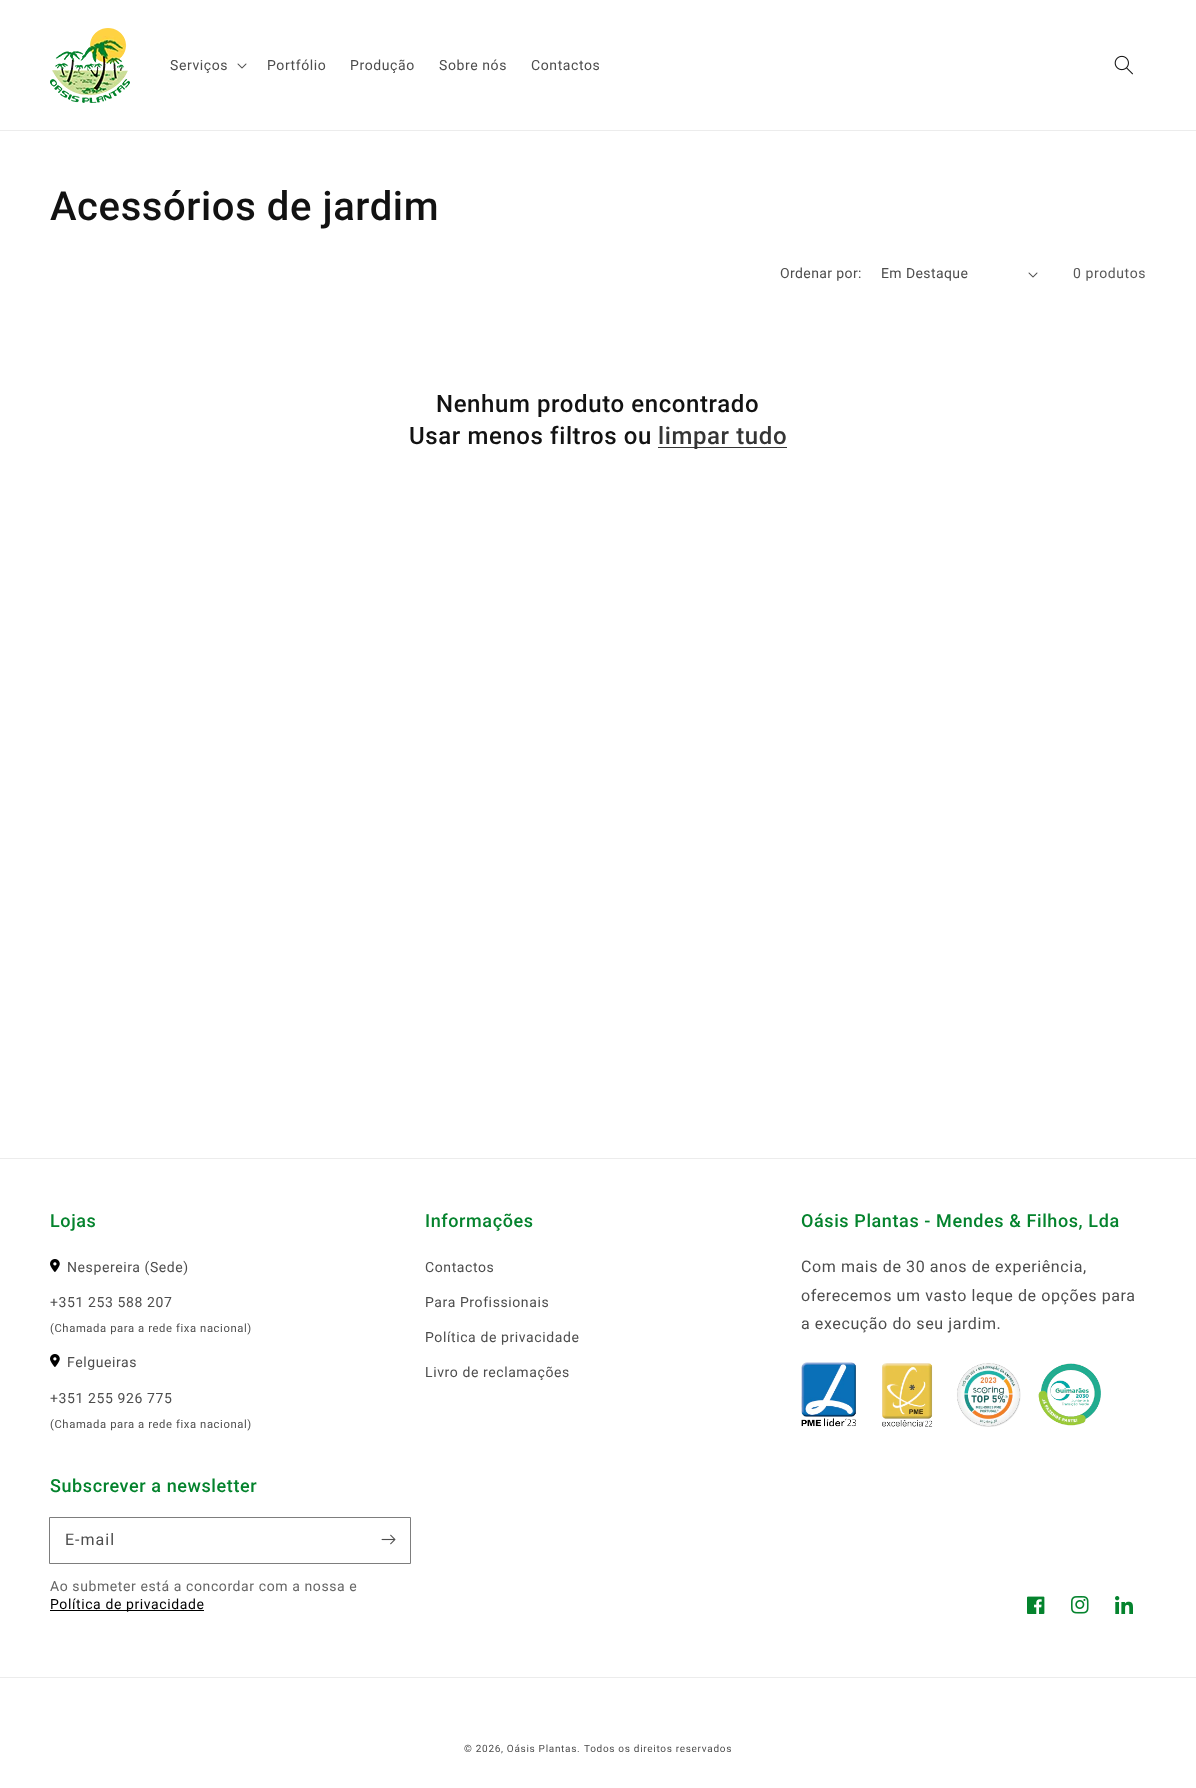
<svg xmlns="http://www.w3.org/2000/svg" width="1196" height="1788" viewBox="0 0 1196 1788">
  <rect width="100%" height="100%" fill="#fff"/>
  <path d="M0 130h1196v1H0z" fill="#ececec"/>
  <image x="50" y="28" width="80" height="75" href="img/1.png"/>
  <image x="237" y="63" width="10" height="6" href="img/2.png"/>
  <image x="1114" y="55" width="19" height="20" href="img/3.png"/>
  <image x="1028" y="272" width="10" height="6" href="img/2.png"/>
  <path d="M658 447h129v1H658z" fill="#363636"/>
  <path d="M0 1158h1196v1H0z" fill="#ececec"/>
  <image x="50" y="1259" width="10" height="13" href="img/4.png"/>
  <image x="50" y="1354" width="10" height="13" href="img/4.png"/>
  <image x="801" y="1362" width="300" height="65" href="img/5.png"/>
  <path d="M49.5 1517.5h361v46H49.5z" fill="none" stroke="#7d7d7d"/>
  <image x="381" y="1534" width="15" height="11" href="img/6.png"/>
  <path d="M50 1610h154v1H50z" fill="#000"/>
  <image x="1027" y="1596" width="18" height="18" href="img/7.png"/>
  <image x="1071" y="1596" width="18" height="18" href="img/8.png"/>
  <image x="1115" y="1596" width="18" height="18" href="img/9.png"/>
  <path d="M0 1677h1196v1H0z" fill="#ececec"/>
  <g font-family="Roboto" font-size="14" letter-spacing="0.6" fill="#4d4d4d">
    <text x="170" y="70">Serviços</text>
    <text x="267" y="70">Portfólio</text>
    <text x="350" y="70">Produção</text>
    <text x="439" y="70">Sobre nós</text>
    <text x="531" y="70">Contactos</text>
  </g>
  <text x="50" y="220" font-family="Roboto" font-size="40" font-weight="500" letter-spacing="0.6" fill="#121212">Acessórios de jardim</text>
  <g font-family="Roboto" font-size="14" letter-spacing="0.4" fill="#4d4d4d">
    <text x="780" y="278">Ordenar por:</text>
    <text x="881" y="278">Em Destaque</text>
  </g>
  <text x="1073" y="278" font-family="Roboto" font-size="14" letter-spacing="0.6" fill="#595959">0 produtos</text>
  <g font-family="Roboto" font-size="24" font-weight="500" letter-spacing="0.6" fill="#121212">
    <text x="436" y="412">Nenhum produto encontrado</text>
    <text x="409" y="444">Usar menos filtros ou</text>
  </g>
  <text x="658" y="444" font-family="Roboto" font-size="24" font-weight="500" letter-spacing="0.6" fill="#353535">limpar tudo</text>
  <text x="50" y="1227" font-family="Roboto" font-size="18" font-weight="500" letter-spacing="0.6" fill="#04832d">Lojas</text>
  <g font-family="Roboto" font-size="14" letter-spacing="0.6" fill="#4d4d4d">
    <text x="67" y="1272">Nespereira (Sede)</text>
    <text x="50" y="1307">+351 253 588 207</text>
  </g>
  <text x="50" y="1332" font-family="Roboto" font-size="11.25" letter-spacing="0.6" fill="#4d4d4d">(Chamada para a rede fixa nacional)</text>
  <g font-family="Roboto" font-size="14" letter-spacing="0.6" fill="#4d4d4d">
    <text x="67" y="1367">Felgueiras</text>
    <text x="50" y="1403">+351 255 926 775</text>
  </g>
  <text x="50" y="1428" font-family="Roboto" font-size="11.25" letter-spacing="0.6" fill="#4d4d4d">(Chamada para a rede fixa nacional)</text>
  <text x="425" y="1227" font-family="Roboto" font-size="18" font-weight="500" letter-spacing="0.6" fill="#04832d">Informações</text>
  <g font-family="Roboto" font-size="14" letter-spacing="0.6" fill="#4d4d4d">
    <text x="425" y="1272">Contactos</text>
    <text x="425" y="1307">Para Profissionais</text>
    <text x="425" y="1342">Política de privacidade</text>
    <text x="425" y="1377">Livro de reclamações</text>
  </g>
  <text x="801" y="1227" font-family="Roboto" font-size="18" font-weight="500" letter-spacing="0.6" fill="#04832d">Oásis Plantas - Mendes &amp; Filhos, Lda</text>
  <g font-family="Roboto" font-size="16" letter-spacing="0.6" fill="#4d4d4d">
    <text x="801" y="1272">Com mais de 30 anos de experiência,</text>
    <text x="801" y="1301">oferecemos um vasto leque de opções para</text>
    <text x="801" y="1329">a execução do seu jardim.</text>
  </g>
  <text x="50" y="1492" font-family="Roboto" font-size="18" font-weight="500" letter-spacing="0.6" fill="#04832d">Subscrever a newsletter</text>
  <text x="65" y="1545" font-family="Roboto" font-size="16" letter-spacing="1" fill="#4d4d4d">E-mail</text>
  <text x="50" y="1591" font-family="Roboto" font-size="14" letter-spacing="0.6" fill="#666">Ao submeter está a concordar com a nossa e</text>
  <text x="50" y="1609" font-family="Roboto" font-size="14" letter-spacing="0.6" fill="#000">Política de privacidade</text>
  <g font-family="Roboto" font-size="10" letter-spacing="0.7" fill="#4d4d4d">
    <text x="464" y="1752">© 2026, Oásis Plantas.</text>
    <text x="584" y="1752">Todos os direitos reservados</text>
  </g>
</svg>
